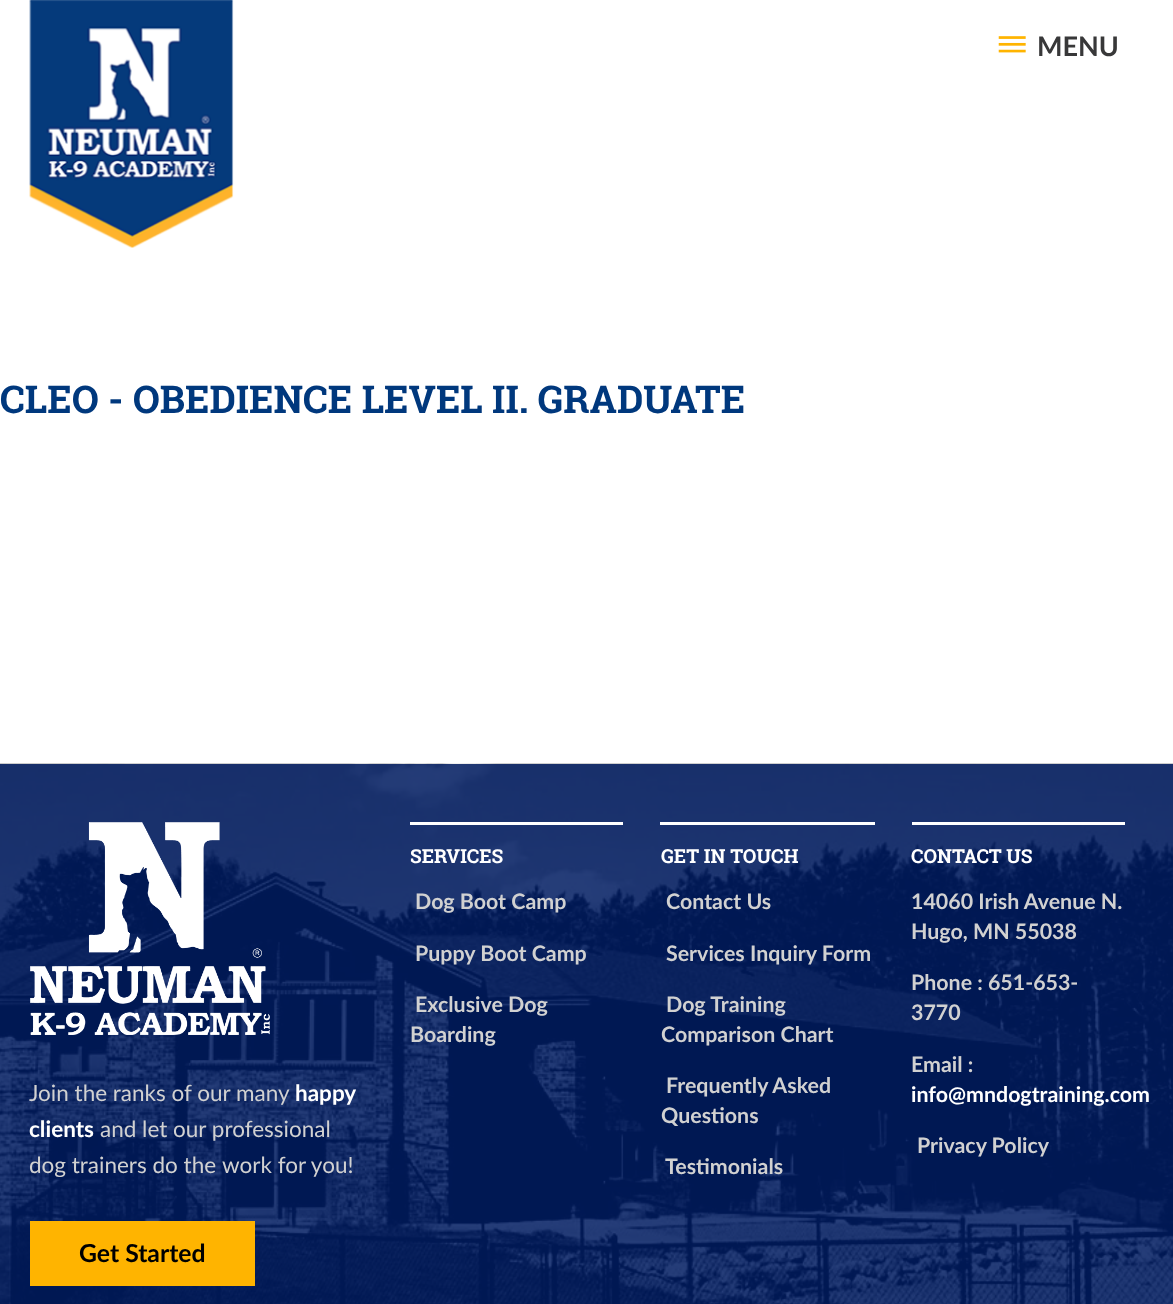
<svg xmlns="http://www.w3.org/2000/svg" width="1173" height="1304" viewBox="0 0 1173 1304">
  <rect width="100%" height="100%" fill="#fff"/>
  <image x="29" y="0" width="205" height="248" href="img/1.png"/>
  <image x="998" y="36" width="28" height="17" href="img/2.png"/>
  <image x="0" y="763" width="1173" height="541" href="img/3.png"/>
  <image x="30" y="822" width="240" height="213" href="img/4.png"/>
  <path d="M30 1221h225v65H30z" fill="#ffb400"/>
  <path d="M410 822h213v3H410z" fill="#fff"/>
  <path d="M660 822h215v3H660z" fill="#fff"/>
  <path d="M912 822h213v3H912z" fill="#fff"/>
  <text x="1037" y="56" font-family="Lato" font-size="27" font-weight="bold" fill="#383839">MENU</text>
  <text x="0" y="413" font-family="Roboto Slab" font-size="38.25" font-weight="bold" fill="#00387d">CLEO - OBEDIENCE LEVEL II. GRADUATE</text>
  <text x="29" y="1101" font-family="Lato" font-size="22.5" fill="#d1d1d1">Join the ranks of our many</text>
  <g font-family="Lato" font-size="22.5" font-weight="bold" fill="#fff">
    <text x="295" y="1101">happy</text>
    <text x="29" y="1137">clients</text>
  </g>
  <g font-family="Lato" font-size="22.5" fill="#d1d1d1">
    <text x="100" y="1137">and let our professional</text>
    <text x="29" y="1173">dog trainers do the</text>
    <text x="222" y="1173">work for you!</text>
  </g>
  <text x="79" y="1262" font-family="Lato" font-size="24.75" font-weight="bold" fill="#000">Get Started</text>
  <text x="410" y="863" font-family="Roboto Slab" font-size="19.25" font-weight="bold" fill="#fff">SERVICES</text>
  <g font-family="Lato" font-size="21.4" font-weight="bold" fill="#d1d1d1">
    <text x="415" y="909">Dog Boot Camp</text>
    <text x="415" y="961">Puppy Boot Camp</text>
    <text x="415" y="1012">Exclusive Dog</text>
    <text x="410" y="1042">Boarding</text>
  </g>
  <text x="661" y="863" font-family="Roboto Slab" font-size="19.25" font-weight="bold" fill="#fff">GET IN TOUCH</text>
  <g font-family="Lato" font-size="21.4" font-weight="bold" fill="#d1d1d1">
    <text x="666" y="909">Contact Us</text>
    <text x="666" y="961">Services Inquiry Form</text>
    <text x="666" y="1012">Dog Training</text>
    <text x="661" y="1042">Comparison Chart</text>
    <text x="666" y="1093">Frequently Asked</text>
    <text x="661" y="1123">Questions</text>
    <text x="665" y="1174">Testimonials</text>
  </g>
  <text x="911" y="863" font-family="Roboto Slab" font-size="19.25" font-weight="bold" fill="#fff">CONTACT US</text>
  <g font-family="Lato" font-size="21.4" font-weight="bold" fill="#d1d1d1">
    <text x="911" y="909">14060 Irish Avenue N.</text>
    <text x="911" y="939">Hugo, MN 55038</text>
    <text x="911" y="990">Phone : 651-653-</text>
    <text x="911" y="1020">3770</text>
    <text x="911" y="1072">Email :</text>
  </g>
  <text x="911" y="1102" font-family="Lato" font-size="21.4" font-weight="bold" fill="#fff">info@mndogtraining.com</text>
  <text x="917" y="1153" font-family="Lato" font-size="21.4" font-weight="bold" fill="#d1d1d1">Privacy Policy</text>
</svg>
